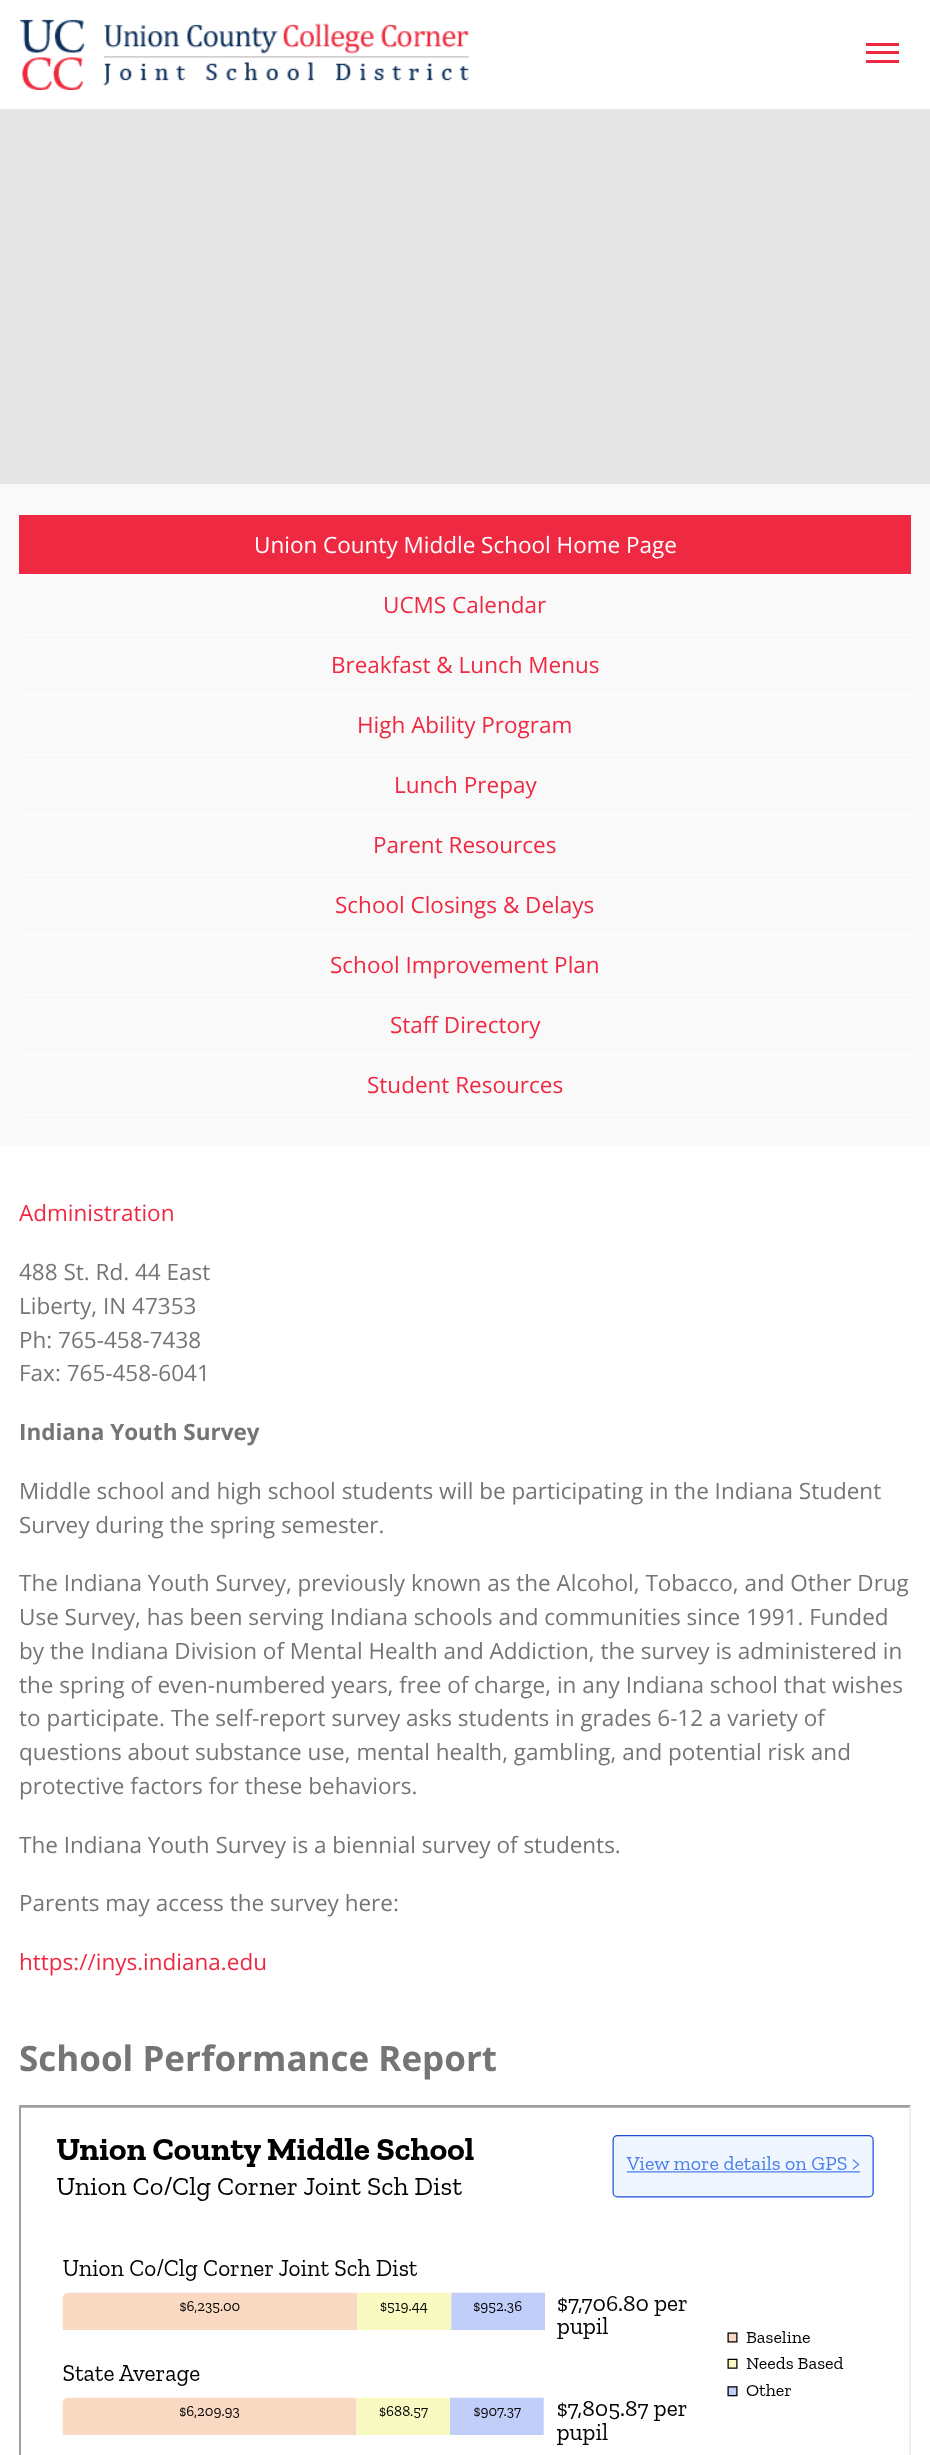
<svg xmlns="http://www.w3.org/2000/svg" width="930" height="2455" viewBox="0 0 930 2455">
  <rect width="100%" height="100%" fill="#fff"/>
  <image x="19" y="19" width="450" height="71" href="img/1.png"/>
  <path d="M866 43h33v3H866z" fill="#ef2942"/>
  <path d="M866 51h33v3H866z" fill="#ef2942"/>
  <path d="M866 60h33v3H866z" fill="#ef2942"/>
  <path d="M0 109h930v375H0z" fill="#e6e6e6"/>
  <path d="M0 484h930v662H0z" fill="#f9f9f9"/>
  <path d="M19 515h892v59H19z" fill="#ef2942"/>
  <path d="M19 574h892v1H19z" fill="#fff"/>
  <path d="M19 634h892v1H19z" fill="#fff"/>
  <path d="M19 694h892v1H19z" fill="#fff"/>
  <path d="M19 754h892v1H19z" fill="#fff"/>
  <path d="M19 814h892v1H19z" fill="#fff"/>
  <path d="M19 874h892v1H19z" fill="#fff"/>
  <path d="M19 934h892v1H19z" fill="#fff"/>
  <path d="M19 994h892v1H19z" fill="#fff"/>
  <path d="M19 1054h892v1H19z" fill="#fff"/>
  <path d="M19 1114h892v1H19z" fill="#fff"/>
  <path d="M19 2105H911L909 2108H21Z" fill="#9f9f9f"/>
  <path d="M19 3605V2105L21 2108V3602Z" fill="#9f9f9f"/>
  <image x="21" y="2107" width="888" height="338" href="img/2.png"/>
  <path d="M911 2105V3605L909 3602V2108Z" fill="#eee"/>
  <text x="254" y="553" font-family="Open Sans" font-size="22.5" fill="#fff">Union County Middle School Home Page</text>
  <g font-family="Open Sans" font-size="22.5" fill="#ef2942">
    <text x="383" y="613">UCMS Calendar</text>
    <text x="331" y="673">Breakfast &amp; Lunch Menus</text>
    <text x="357" y="733">High Ability Program</text>
    <text x="394" y="793">Lunch Prepay</text>
    <text x="373" y="853">Parent Resources</text>
    <text x="335" y="913">School Closings &amp; Delays</text>
    <text x="330" y="973">School Improvement Plan</text>
    <text x="390" y="1033">Staff Directory</text>
    <text x="367" y="1093">Student Resources</text>
    <text x="19" y="1221">Administration</text>
  </g>
  <g font-family="Open Sans" font-size="22.5" fill="#757575">
    <text x="19" y="1280">488 St. Rd. 44 East</text>
    <text x="19" y="1314">Liberty, IN 47353</text>
    <text x="19" y="1348">Ph: 765-458-7438</text>
    <text x="19" y="1381">Fax: 765-458-6041</text>
  </g>
  <text x="19" y="1440" font-family="Open Sans" font-size="22.5" font-weight="bold" fill="#757575">Indiana Youth Survey</text>
  <g font-family="Open Sans" font-size="22.5" fill="#757575">
    <text x="19" y="1499">Middle school and high school students will be participating in the Indiana Student</text>
    <text x="19" y="1533">Survey during the spring semester.</text>
    <text x="19" y="1591">The Indiana Youth Survey, previously known as the Alcohol, Tobacco, and Other Drug</text>
    <text x="19" y="1625">Use Survey, has been serving Indiana schools and communities since 1991. Funded</text>
    <text x="19" y="1659">by the Indiana Division of Mental Health and Addiction, the survey is administered in</text>
    <text x="19" y="1693">the spring of even-numbered years, free of charge, in any Indiana school that wishes</text>
    <text x="19" y="1726">to participate. The self-report survey asks students in grades 6-12 a variety of</text>
    <text x="19" y="1760">questions about substance use, mental health, gambling, and potential risk and</text>
    <text x="19" y="1794">protective factors for these behaviors.</text>
    <text x="19" y="1853">The Indiana Youth Survey is a biennial survey of students.</text>
    <text x="19" y="1911">Parents may access the survey here:</text>
  </g>
  <text x="19" y="1970" font-family="Open Sans" font-size="22.5" fill="#ef2942">https://inys.indiana.edu</text>
  <text x="19" y="2071" font-family="Open Sans" font-size="35" font-weight="bold" fill="#757575">School Performance Report</text>
</svg>
